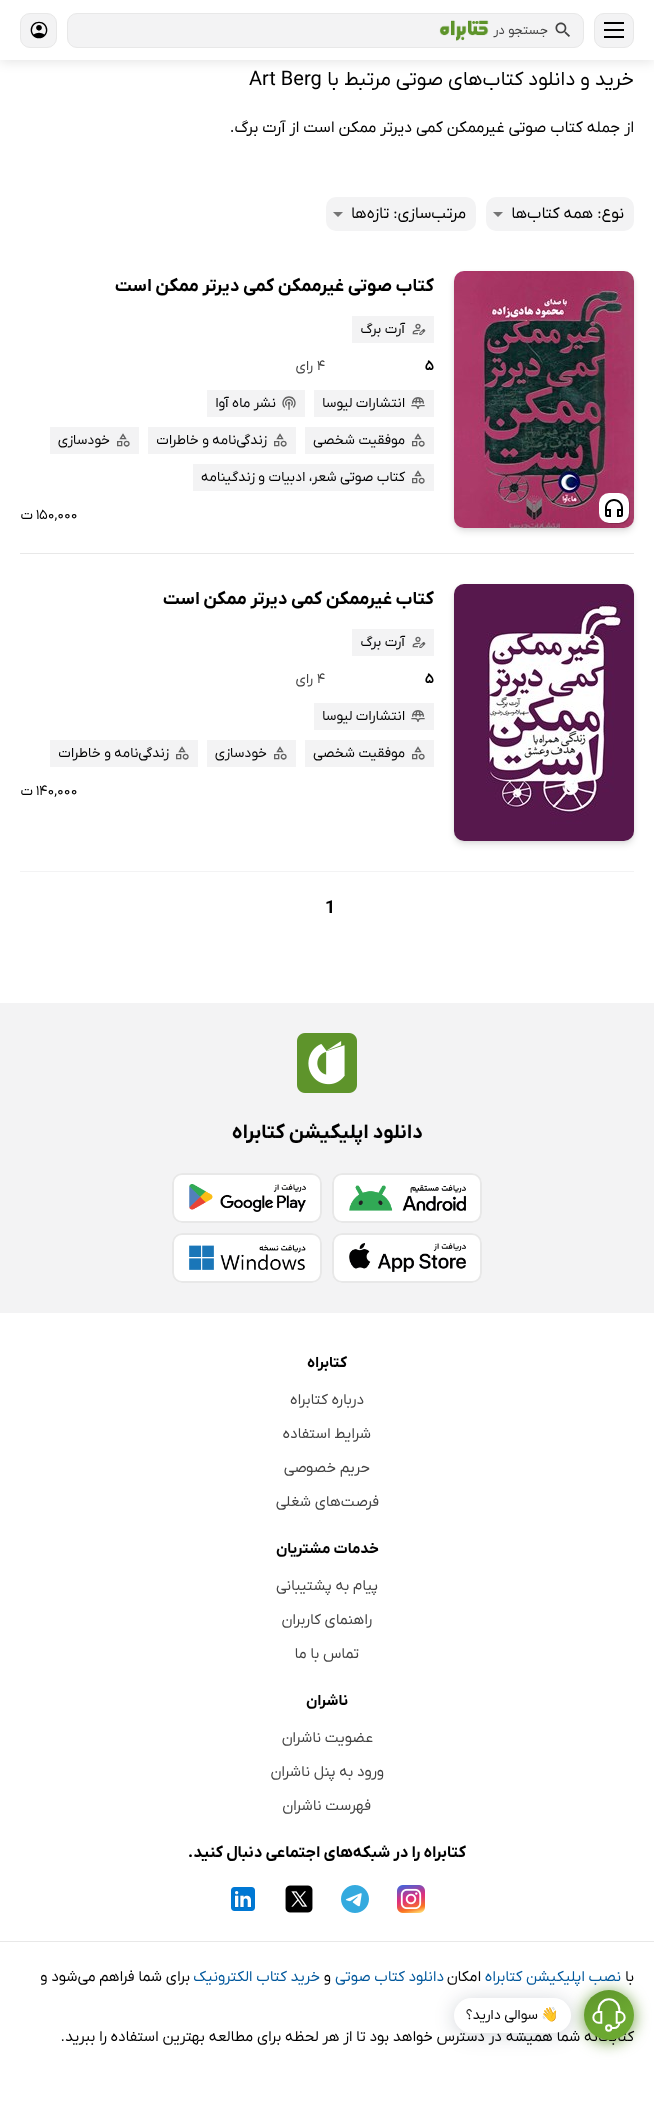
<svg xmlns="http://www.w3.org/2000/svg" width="654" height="2110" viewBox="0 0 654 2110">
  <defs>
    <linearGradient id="g1" gradientUnits="userSpaceOnUse" x1="594" y1="1985" x2="624" y2="2045"><stop offset="0" stop-color="#5e942b"/><stop offset="0.58" stop-color="#6ba831"/></linearGradient>
  </defs>
  <rect width="100%" height="100%" fill="#fff"/>
  <path d="M0 2h654v60H0z" fill="#0000001a" filter="blur(6px)"/>
  <path d="M0 0h654v60H0z" fill="#fff"/>
  <rect x="594.5" y="13.5" width="39" height="34" rx="9.5" fill="#f3f3f4" stroke="#e8e8e8"/>
  <path d="M604 22h20v2H604z" fill="#000"/>
  <path d="M604 29h20v2H604z" fill="#000"/>
  <path d="M604 36h20v2H604z" fill="#000"/>
  <rect x="67.5" y="13.5" width="516" height="34" rx="9.5" fill="#f3f3f4" stroke="#e8e8e8"/>
  <image x="555" y="22" width="15" height="15" href="img/1.png"/>
  <image x="439" y="20" width="50" height="21" href="img/2.png"/>
  <rect x="20.5" y="13.5" width="36" height="34" rx="9.5" fill="#f3f3f4" stroke="#e8e8e8"/>
  <image x="30" y="21" width="18" height="18" href="img/3.png"/>
  <rect x="486" y="197" width="148" height="34" rx="10" fill="#f3f3f4"/>
  <image x="493" y="212" width="10" height="5" href="img/4.png"/>
  <rect x="326" y="197" width="150" height="34" rx="10" fill="#f3f3f4"/>
  <image x="333" y="212" width="10" height="5" href="img/4.png"/>
  <path d="M20 553h614v1H20z" fill="#e8e8e8"/>
  <rect x="454" y="272" width="180" height="257" rx="10" fill="#0000000f" filter="blur(1.5px)"/>
  <rect x="454" y="275" width="180" height="257" rx="10" fill="#0000001a" filter="blur(3px)"/>
  <rect x="454" y="271" width="180" height="257" rx="10" fill="#f3f3f4"/>
  <image x="454" y="271" width="180" height="257" href="img/5.png"/>
  <rect x="600" y="494" width="30" height="30" rx="10" fill="#00000033" filter="blur(0.5px)"/>
  <rect x="599" y="493" width="30" height="30" rx="10" fill="#fff"/>
  <image x="605" y="499" width="18" height="18" href="img/6.png"/>
  <path d="M352 316h82v27H352z" fill="#f3f3f4"/>
  <image x="412" y="323" width="14" height="12" href="img/7.png"/>
  <path d="M314 390h120v27H314z" fill="#f3f3f4"/>
  <image x="411" y="397" width="14" height="12" href="img/8.png"/>
  <path d="M207 390h98v27H207z" fill="#f3f3f4"/>
  <image x="282" y="396" width="14" height="14" href="img/9.png"/>
  <path d="M305 427h129v27H305z" fill="#f3f3f4"/>
  <image x="412" y="433" width="13" height="14" href="img/10.png"/>
  <path d="M148 427h148v27H148z" fill="#f3f3f4"/>
  <image x="274" y="433" width="13" height="14" href="img/10.png"/>
  <path d="M50 427h89v27H50z" fill="#f3f3f4"/>
  <image x="117" y="433" width="13" height="14" href="img/10.png"/>
  <path d="M193 464h241v27H193z" fill="#f3f3f4"/>
  <image x="412" y="470" width="13" height="14" href="img/11.png"/>
  <rect x="454" y="585" width="180" height="257" rx="10" fill="#0000000f" filter="blur(1.5px)"/>
  <rect x="454" y="588" width="180" height="257" rx="10" fill="#0000001a" filter="blur(3px)"/>
  <rect x="454" y="584" width="180" height="257" rx="10" fill="#f3f3f4"/>
  <image x="454" y="584" width="180" height="257" href="img/12.png"/>
  <path d="M352 629h82v27H352z" fill="#f3f3f4"/>
  <image x="412" y="636" width="14" height="12" href="img/7.png"/>
  <path d="M314 703h120v27H314z" fill="#f3f3f4"/>
  <image x="411" y="710" width="14" height="12" href="img/8.png"/>
  <path d="M305 740h129v27H305z" fill="#f3f3f4"/>
  <image x="412" y="746" width="13" height="14" href="img/10.png"/>
  <path d="M207 740h89v27H207z" fill="#f3f3f4"/>
  <image x="274" y="746" width="13" height="14" href="img/10.png"/>
  <path d="M50 740h148v27H50z" fill="#f3f3f4"/>
  <image x="176" y="746" width="13" height="14" href="img/10.png"/>
  <path d="M20 871h614v1H20z" fill="#f3f3f4"/>
  <rect x="584" y="1992" width="50" height="50" rx="25" fill="#5e942be6" filter="blur(8px)"/>
  <path d="M0 1003h654v310H0z" fill="#f3f3f4"/>
  <image x="297" y="1033" width="60" height="60" href="img/14.png"/>
  <rect x="332" y="1173" width="150" height="50" rx="10" fill="#fff"/>
  <image x="349" y="1185" width="117" height="26" href="img/15.png"/>
  <rect x="333" y="1174" width="148" height="48" rx="9" fill="none" stroke="#e8e8e8" stroke-width="2"/>
  <rect x="172" y="1173" width="150" height="50" rx="10" fill="#fff"/>
  <image x="189" y="1184" width="117" height="28" href="img/16.png"/>
  <rect x="173" y="1174" width="148" height="48" rx="9" fill="none" stroke="#e8e8e8" stroke-width="2"/>
  <rect x="332" y="1233" width="150" height="50" rx="10" fill="#fff"/>
  <image x="349" y="1243" width="117" height="29" href="img/17.png"/>
  <rect x="333" y="1234" width="148" height="48" rx="9" fill="none" stroke="#e8e8e8" stroke-width="2"/>
  <rect x="172" y="1233" width="150" height="50" rx="10" fill="#fff"/>
  <image x="189" y="1245" width="117" height="25" href="img/18.png"/>
  <rect x="173" y="1234" width="148" height="48" rx="9" fill="none" stroke="#e8e8e8" stroke-width="2"/>
  <image x="397" y="1885" width="28" height="28" href="img/19.png"/>
  <image x="341" y="1885" width="28" height="28" href="img/20.png"/>
  <image x="285" y="1885" width="28" height="28" href="img/21.png"/>
  <image x="231" y="1887" width="24" height="24" href="img/22.png"/>
  <path d="M0 1941h654v1H0z" fill="#e8e8e8"/>
  <text x="548" y="34" font-family="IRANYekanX" font-size="13" direction="rtl" fill="#424242">جستجو در</text>
  <text x="634" y="85" font-family="IRANYekanX" font-size="20" direction="rtl" fill="#000">خرید و دانلود کتاب‌های صوتی مرتبط با</text>
  <text x="249" y="85" font-family="IRANYekanX" font-size="20" fill="#000">Art Berg</text>
  <g font-family="IRANYekanX" font-size="16" direction="rtl" fill="#000">
    <text x="634" y="132">از جمله کتاب صوتی غیرممکن کمی دیرتر ممکن است از آرت برگ.</text>
    <text x="624" y="218">نوع: همه کتاب‌ها</text>
    <text x="466" y="218">مرتب‌سازی: تازه‌ها</text>
  </g>
  <text x="434" y="291" font-family="IRANYekanX" font-size="18" font-weight="bold" direction="rtl" fill="#000">کتاب صوتی غیرممکن کمی دیرتر ممکن است</text>
  <text x="405" y="333" font-family="IRANYekanX" font-size="14" direction="rtl" fill="#000">آرت برگ</text>
  <text x="425" y="370" font-family="IRANYekanX" font-size="14" font-weight="bold" fill="#000">۵</text>
  <text x="317" y="370" font-family="IRANYekanX" font-size="14" fill="#424242">۴</text>
  <text x="313" y="370" font-family="IRANYekanX" font-size="14" direction="rtl" fill="#424242">رای</text>
  <g font-family="IRANYekanX" font-size="14" direction="rtl" fill="#000">
    <text x="405" y="407">انتشارات لیوسا</text>
    <text x="276" y="407">نشر ماه آوا</text>
    <text x="405" y="444">موفقیت شخصی</text>
    <text x="267" y="444">زندگی‌نامه و خاطرات</text>
    <text x="110" y="444">خودسازی</text>
    <text x="405" y="481">کتاب صوتی شعر، ادبیات و زندگینامه</text>
  </g>
  <text x="36" y="519" font-family="IRANYekanX" font-size="14" fill="#000">۱۵۰,۰۰۰</text>
  <text x="33" y="519" font-family="IRANYekanX" font-size="14" direction="rtl" fill="#000">ت</text>
  <text x="434" y="604" font-family="IRANYekanX" font-size="18" font-weight="bold" direction="rtl" fill="#000">کتاب غیرممکن کمی دیرتر ممکن است</text>
  <text x="405" y="646" font-family="IRANYekanX" font-size="14" direction="rtl" fill="#000">آرت برگ</text>
  <text x="425" y="683" font-family="IRANYekanX" font-size="14" font-weight="bold" fill="#000">۵</text>
  <text x="317" y="683" font-family="IRANYekanX" font-size="14" fill="#424242">۴</text>
  <text x="313" y="683" font-family="IRANYekanX" font-size="14" direction="rtl" fill="#424242">رای</text>
  <g font-family="IRANYekanX" font-size="14" direction="rtl" fill="#000">
    <text x="405" y="720">انتشارات لیوسا</text>
    <text x="405" y="757">موفقیت شخصی</text>
    <text x="267" y="757">خودسازی</text>
    <text x="169" y="757">زندگی‌نامه و خاطرات</text>
  </g>
  <text x="36" y="795" font-family="IRANYekanX" font-size="14" fill="#000">۱۴۰,۰۰۰</text>
  <text x="33" y="795" font-family="IRANYekanX" font-size="14" direction="rtl" fill="#000">ت</text>
  <text x="325" y="913" font-family="IRANYekanX" font-size="18" font-weight="bold" fill="#000">1</text>
  <text x="423" y="1138" font-family="IRANYekanX" font-size="20" font-weight="bold" direction="rtl" fill="#000">دانلود اپلیکیشن کتابراه</text>
  <text x="347" y="1367" font-family="IRANYekanX" font-size="15.05" font-weight="bold" direction="rtl" fill="#000">کتابراه</text>
  <g font-family="IRANYekanX" font-size="15.05" direction="rtl" fill="#424242">
    <text x="364" y="1404">درباره کتابراه</text>
    <text x="371" y="1438">شرایط استفاده</text>
    <text x="370" y="1472">حریم خصوصی</text>
    <text x="379" y="1506">فرصت‌های شغلی</text>
  </g>
  <text x="379" y="1553" font-family="IRANYekanX" font-size="15.05" font-weight="bold" direction="rtl" fill="#000">خدمات مشتریان</text>
  <g font-family="IRANYekanX" font-size="15.05" direction="rtl" fill="#424242">
    <text x="378" y="1590">پیام به پشتیبانی</text>
    <text x="372" y="1624">راهنمای کاربران</text>
    <text x="359" y="1658">تماس با ما</text>
  </g>
  <text x="348" y="1705" font-family="IRANYekanX" font-size="15.05" font-weight="bold" direction="rtl" fill="#000">ناشران</text>
  <g font-family="IRANYekanX" font-size="15.05" direction="rtl" fill="#424242">
    <text x="373" y="1742">عضویت ناشران</text>
    <text x="384" y="1776">ورود به پنل ناشران</text>
    <text x="371" y="1810">فهرست ناشران</text>
  </g>
  <text x="466" y="1857" font-family="IRANYekanX" font-size="16" font-weight="bold" direction="rtl" fill="#000">کتابراه را در شبکه‌های اجتماعی دنبال کنید.</text>
  <text x="634" y="1981" font-family="IRANYekanX" font-size="15.05" direction="rtl" fill="#000">با</text>
  <text x="621" y="1981" font-family="IRANYekanX" font-size="15.05" direction="rtl" fill="#01579b">نصب اپلیکیشن کتابراه</text>
  <text x="481" y="1981" font-family="IRANYekanX" font-size="15.05" direction="rtl" fill="#000">امکان</text>
  <text x="444" y="1981" font-family="IRANYekanX" font-size="15.05" direction="rtl" fill="#01579b">دانلود کتاب صوتی</text>
  <text x="331" y="1981" font-family="IRANYekanX" font-size="15.05" direction="rtl" fill="#000">و</text>
  <text x="320" y="1981" font-family="IRANYekanX" font-size="15.05" direction="rtl" fill="#01579b">خرید کتاب الکترونیک</text>
  <g font-family="IRANYekanX" font-size="15.05" direction="rtl" fill="#000">
    <text x="190" y="1981">برای شما فراهم می‌شود و</text>
    <text x="634" y="2041">کتابخانه شما همیشه در دسترس خواهد بود تا از هر لحظه برای مطالعه بهترین استفاده را ببرید.</text>
  </g>
  <circle cx="609" cy="2015" r="25" fill="url(#g1)"/>
  <rect x="454" y="2000" width="117" height="35" rx="17.5" fill="#00122e2e" filter="blur(10px)"/>
  <image x="592" y="1998" width="34" height="34" href="img/13.png"/>
  <rect x="454" y="1998" width="117" height="35" rx="17.5" fill="#fff"/>
  <text x="559" y="2019" font-family="Noto Color Emoji" font-size="14" direction="rtl" fill="#000">👋</text>
  <text x="538" y="2019" font-family="IRANYekanX" font-size="14" direction="rtl" fill="#000">سوالی دارید؟</text>
</svg>
